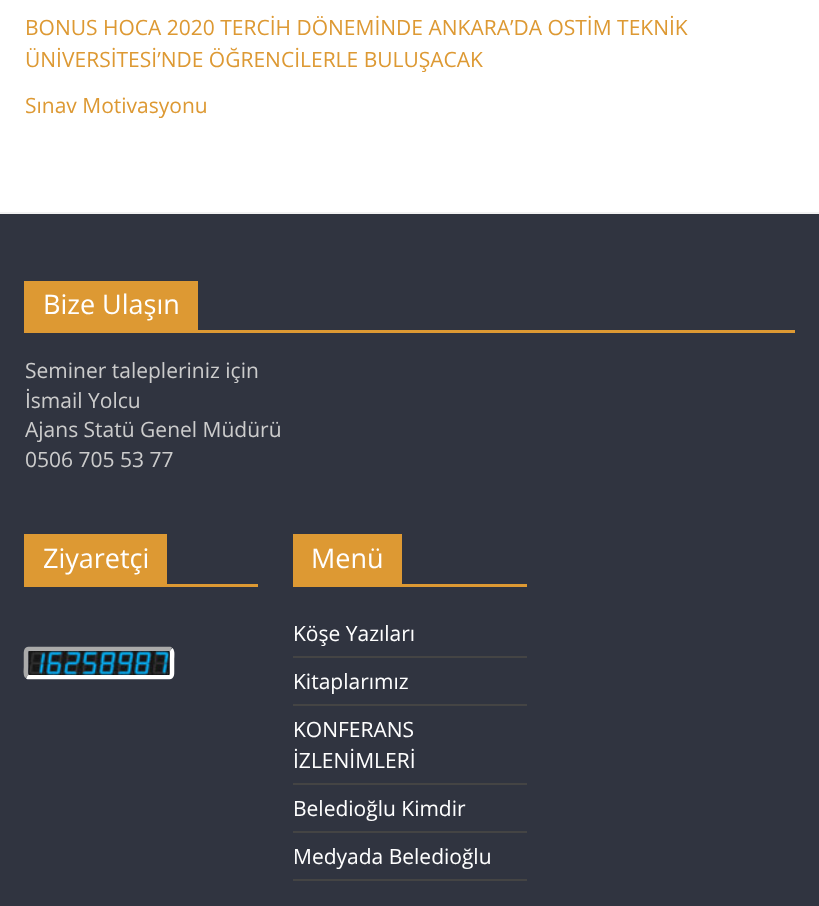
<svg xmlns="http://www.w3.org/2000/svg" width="819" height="906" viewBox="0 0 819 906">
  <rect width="100%" height="100%" fill="#fff"/>
  <path d="M0 214h819v692H0z" fill="#303440"/>
  <path d="M0 212h819v2H0z" fill="#f2f2f2"/>
  <path d="M24 330h771v3H24z" fill="#d93"/>
  <path d="M24 281h174v49H24z" fill="#d93"/>
  <path d="M24 584h234v3H24z" fill="#d93"/>
  <path d="M24 534h143v50H24z" fill="#d93"/>
  <path d="M171 649.5C173 651.5 172 657 172 659V671C172 672.5 172.5 677 169.5 677H28L27 676.5" fill="none" stroke="#fff" stroke-width="4.5"/>
  <path d="M27 676.5C25 674.5 26 669 26 667V655C26 653.5 25.5 649 28.5 649H170L171 649.5" fill="none" stroke="#aaa" stroke-width="4.5"/>
  <image x="28" y="651" width="142" height="24" href="img/1.png"/>
  <path d="M293 584h234v3H293z" fill="#d93"/>
  <path d="M293 534h109v50H293z" fill="#d93"/>
  <path d="M293 656h234v2H293z" fill="#444"/>
  <path d="M293 704h234v2H293z" fill="#444"/>
  <path d="M293 783h234v2H293z" fill="#444"/>
  <path d="M293 831h234v2H293z" fill="#444"/>
  <path d="M293 879h234v2H293z" fill="#444"/>
  <g font-family="Open Sans" font-size="21" fill="#d93">
    <text x="25" y="35">BONUS HOCA 2020 TERCİH DÖNEMİNDE ANKARA’DA OSTİM TEKNİK</text>
    <text x="25" y="67">ÜNİVERSİTESİ’NDE ÖĞRENCİLERLE BULUŞACAK</text>
    <text x="25" y="113">Sınav Motivasyonu</text>
  </g>
  <text x="43" y="314" font-family="Open Sans" font-size="27" fill="#fff">Bize Ulaşın</text>
  <g font-family="Open Sans" font-size="21" fill="#ccc">
    <text x="25" y="378">Seminer talepleriniz için</text>
    <text x="25" y="408">İsmail Yolcu</text>
    <text x="25" y="437">Ajans Statü Genel Müdürü</text>
    <text x="25" y="467">0506 705 53 77</text>
  </g>
  <g font-family="Open Sans" font-size="27" fill="#fff">
    <text x="43" y="568">Ziyaretçi</text>
    <text x="311" y="568">Menü</text>
  </g>
  <g font-family="Open Sans" font-size="21" fill="#fff">
    <text x="293" y="641">Köşe Yazıları</text>
    <text x="293" y="689">Kitaplarımız</text>
    <text x="293" y="737">KONFERANS</text>
    <text x="293" y="768">İZLENİMLERİ</text>
    <text x="293" y="816">Beledioğlu Kimdir</text>
    <text x="293" y="864">Medyada Beledioğlu</text>
  </g>
</svg>
